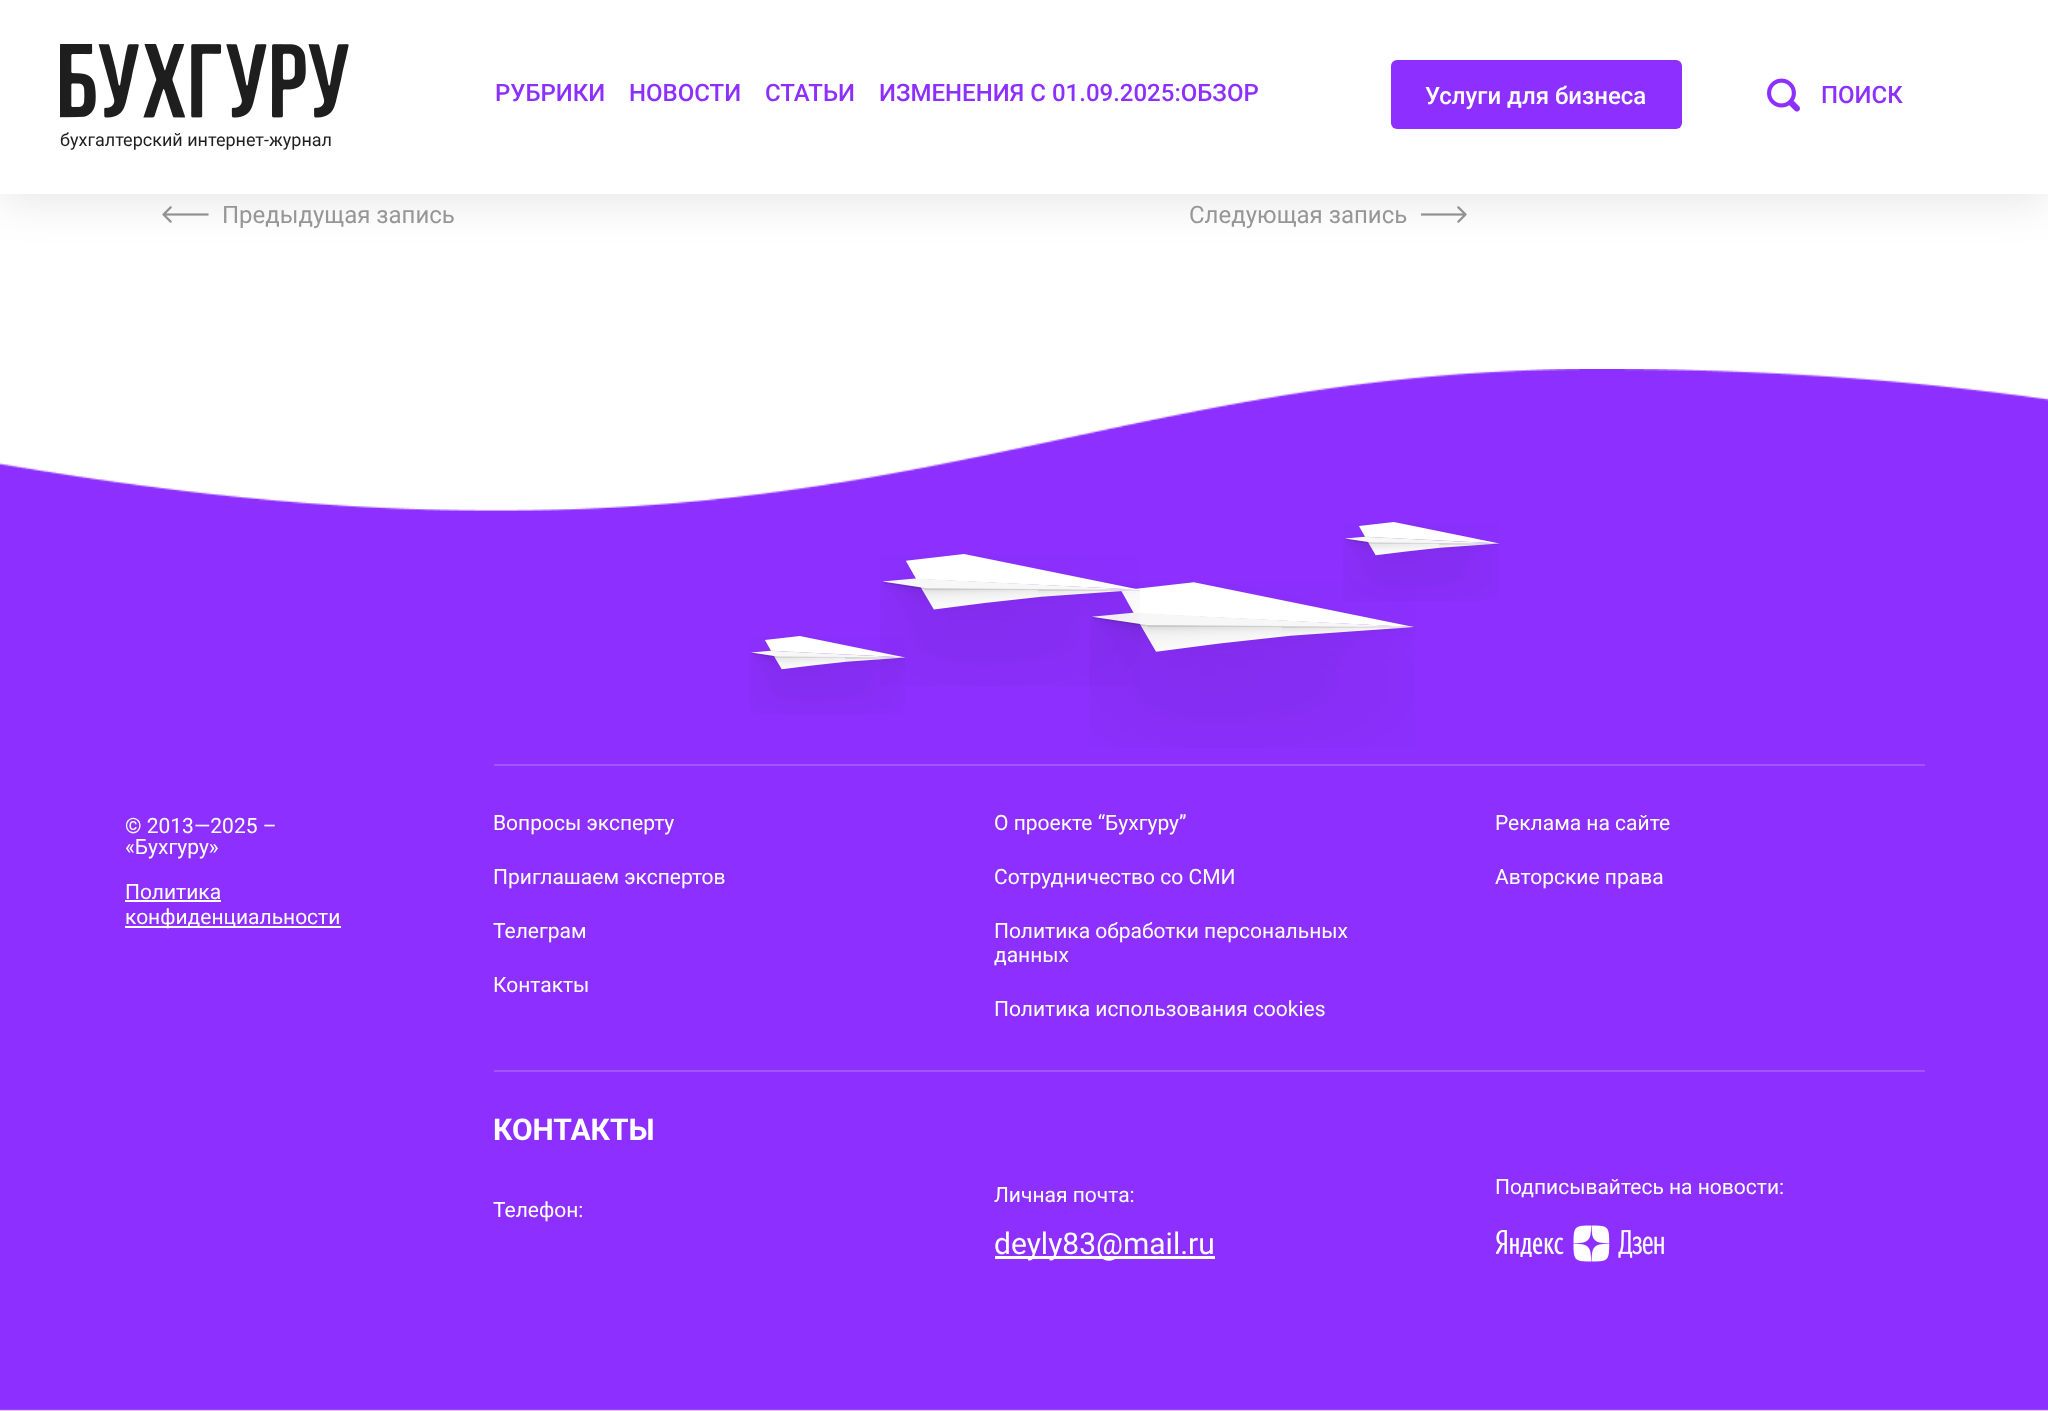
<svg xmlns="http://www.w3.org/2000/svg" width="2048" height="1411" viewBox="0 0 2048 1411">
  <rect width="100%" height="100%" fill="#fff"/>
  <image x="162" y="206" width="47" height="17" href="img/3.png"/>
  <image x="1421" y="206" width="46" height="17" href="img/4.png"/>
  <path d="M0 6h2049v194H0z" fill="#0000001a" filter="blur(22.5px)"/>
  <path d="M0 0h2048v194H0z" fill="#fff"/>
  <rect x="1391" y="60" width="291" height="69" rx="6" fill="#8d30ff"/>
  <image x="1767" y="78" width="33" height="34" href="img/1.png"/>
  <image x="60" y="44" width="289" height="74" href="img/2.png"/>
  <image x="0" y="369" width="2048" height="1042" href="img/5.png"/>
  <image x="1089" y="582" width="326" height="166" href="img/8.png"/>
  <image x="880" y="554" width="260" height="132" href="img/7.png"/>
  <image x="749" y="636" width="156" height="79" href="img/6.png"/>
  <image x="1343" y="522" width="156" height="79" href="img/9.png"/>
  <path d="M125 900h96v2H125z" fill="#fff"/>
  <path d="M125 926h216v2H125z" fill="#fff"/>
  <path d="M494 764h1431v2H494z" fill="#a255ff"/>
  <path d="M494 1070h1431v2H494z" fill="#a255ff"/>
  <path d="M995 1256h220v3H995z" fill="#fff"/>
  <image x="1496" y="1225" width="168" height="37" href="img/10.png"/>
  <g font-family="Roboto" font-size="24" font-weight="500" fill="#8d30ff">
    <text x="495" y="101">РУБРИКИ</text>
    <text x="629" y="101">НОВОСТИ</text>
    <text x="765" y="101">СТАТЬИ</text>
    <text x="879" y="101">ИЗМЕНЕНИЯ С 01.09.2025:ОБЗОР</text>
  </g>
  <text x="1425" y="104" font-family="Roboto" font-size="24" font-weight="500" fill="#fff">Услуги для бизнеса</text>
  <text x="1821" y="103" font-family="Roboto" font-size="24" font-weight="500" fill="#8d30ff">ПОИСК</text>
  <text x="60" y="146" font-family="Roboto" font-size="18" fill="#1e1e1e">бухгалтерский интернет-журнал</text>
  <g font-family="Roboto" font-size="24" fill="#969696">
    <text x="222" y="223">Предыдущая запись</text>
    <text x="1189" y="223">Следующая запись</text>
  </g>
  <g font-family="Roboto" font-size="21" fill="#fff">
    <text x="125" y="833">© 2013—2025 –</text>
    <text x="125" y="854">«Бухгуру»</text>
    <text x="125" y="899">Политика</text>
    <text x="125" y="924">конфиденциальности</text>
    <text x="493" y="830">Вопросы эксперту</text>
    <text x="493" y="884">Приглашаем экспертов</text>
    <text x="493" y="938">Телеграм</text>
    <text x="493" y="992">Контакты</text>
    <text x="994" y="830">О проекте “Бухгуру”</text>
    <text x="994" y="884">Сотрудничество со СМИ</text>
    <text x="994" y="938">Политика обработки персональных</text>
    <text x="994" y="962">данных</text>
    <text x="994" y="1016">Политика использования cookies</text>
    <text x="1495" y="830">Реклама на сайте</text>
    <text x="1495" y="884">Авторские права</text>
  </g>
  <text x="493" y="1140" font-family="Roboto" font-size="30" font-weight="bold" fill="#fff">КОНТАКТЫ</text>
  <g font-family="Roboto" font-size="21" fill="#fff">
    <text x="493" y="1217">Телефон:</text>
    <text x="994" y="1202">Личная почта:</text>
  </g>
  <text x="994" y="1254" font-family="Roboto" font-size="30" fill="#fff">deyly83@mail.ru</text>
  <text x="1495" y="1194" font-family="Roboto" font-size="21" fill="#fff">Подписывайтесь на новости:</text>
</svg>
